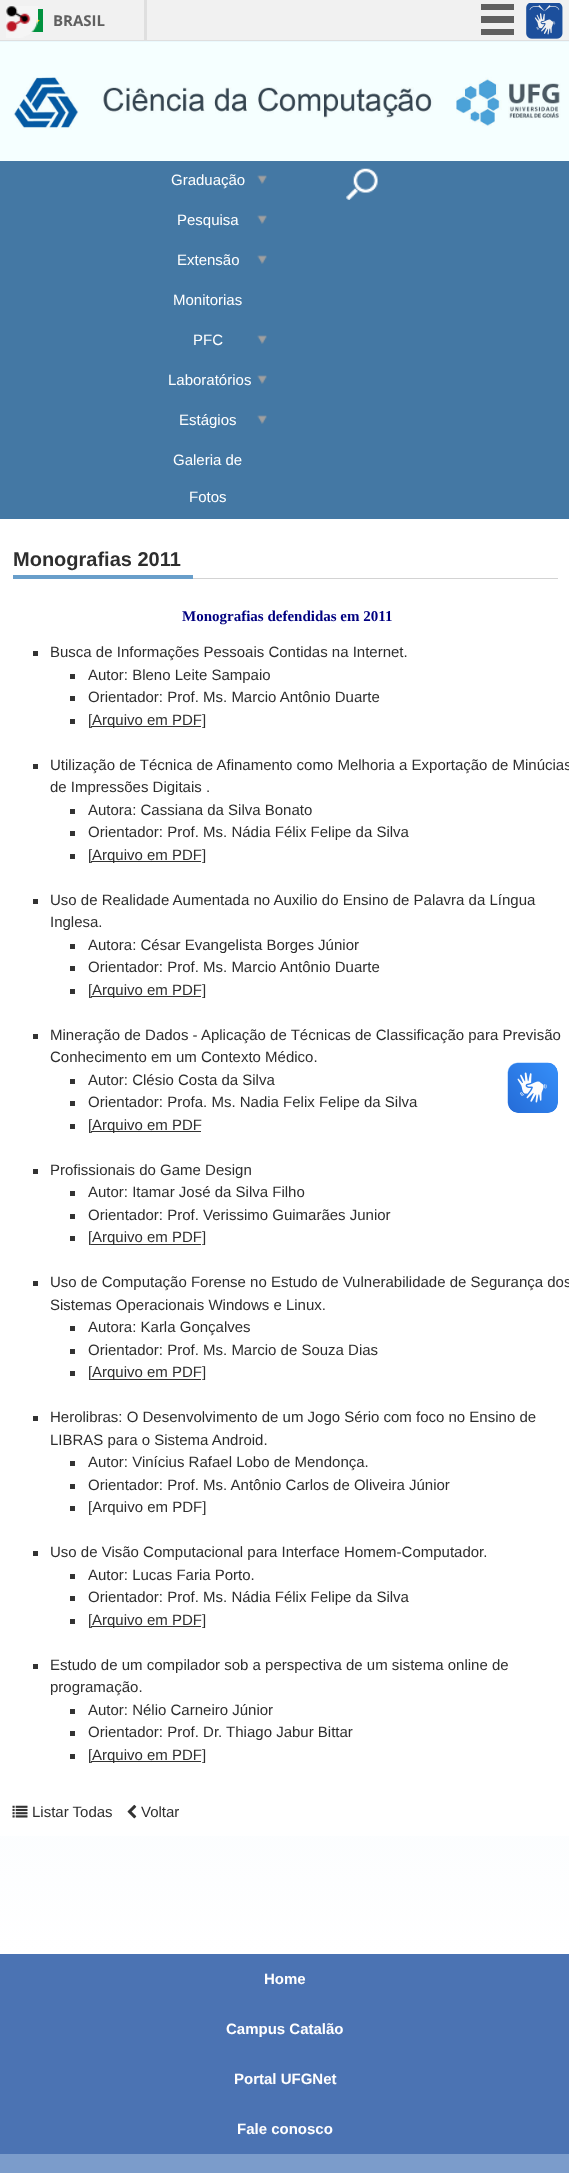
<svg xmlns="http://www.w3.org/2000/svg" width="569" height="2173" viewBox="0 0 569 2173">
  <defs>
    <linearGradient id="g1" gradientUnits="userSpaceOnUse" x1="285" y1="41" x2="285" y2="1954"><stop offset="0" stop-color="#cbe5f5"/><stop offset="1" stop-color="#fff"/></linearGradient>
  </defs>
  <rect width="100%" height="100%" fill="#f1f1f1"/>
  <image x="31" y="9" width="12" height="23" href="img/2.png"/>
  <image x="6" y="6" width="32" height="32" href="img/1.png"/>
  <path d="M0 40h569v1H0z" fill="#dfdfdf"/>
  <path d="M144 0h3v40H144z" fill="#dfdfdf"/>
  <path d="M481 4h33v6H481z" fill="#606060"/>
  <path d="M481 16h33v7H481z" fill="#606060"/>
  <path d="M481 29h33v6H481z" fill="#606060"/>
  <image x="526" y="3" width="37" height="36" href="img/3.png"/>
  <path d="M0 41h569v1913H0z" fill="url(#g1)"/>
  <image x="0" y="41" width="569" height="120" href="img/4.png"/>
  <path d="M0 161h569v358H0z" fill="#4478a4"/>
  <image x="257" y="175" width="10" height="9" href="img/5.png"/>
  <image x="257" y="215" width="10" height="9" href="img/5.png"/>
  <image x="257" y="255" width="10" height="9" href="img/5.png"/>
  <image x="257" y="335" width="10" height="9" href="img/5.png"/>
  <image x="257" y="375" width="10" height="9" href="img/5.png"/>
  <image x="257" y="415" width="10" height="9" href="img/5.png"/>
  <image x="346" y="168" width="32" height="32" href="img/6.png"/>
  <path d="M0 519h569v1317H0z" fill="#fff"/>
  <path d="M193 578h365v1H193z" fill="#d3d3d3"/>
  <path d="M13 575h180v4H13z" fill="#689eca"/>
  <path d="M33 651h5v5H33z" fill="#333"/>
  <path d="M70 674h5v5H70z" fill="#333"/>
  <path d="M70 696h5v5H70z" fill="#333"/>
  <path d="M70 719h5v5H70z" fill="#333"/>
  <path d="M33 764h5v5H33z" fill="#333"/>
  <path d="M70 809h5v5H70z" fill="#333"/>
  <path d="M70 831h5v5H70z" fill="#333"/>
  <path d="M70 854h5v5H70z" fill="#333"/>
  <path d="M33 899h5v5H33z" fill="#333"/>
  <path d="M70 944h5v5H70z" fill="#333"/>
  <path d="M70 966h5v5H70z" fill="#333"/>
  <path d="M70 989h5v5H70z" fill="#333"/>
  <path d="M33 1034h5v5H33z" fill="#333"/>
  <path d="M70 1079h5v5H70z" fill="#333"/>
  <path d="M70 1101h5v5H70z" fill="#333"/>
  <path d="M70 1124h5v5H70z" fill="#333"/>
  <path d="M33 1169h5v5H33z" fill="#333"/>
  <path d="M70 1191h5v5H70z" fill="#333"/>
  <path d="M70 1214h5v5H70z" fill="#333"/>
  <path d="M70 1236h5v5H70z" fill="#333"/>
  <path d="M33 1281h5v5H33z" fill="#333"/>
  <path d="M70 1326h5v5H70z" fill="#333"/>
  <path d="M70 1349h5v5H70z" fill="#333"/>
  <path d="M70 1371h5v5H70z" fill="#333"/>
  <path d="M33 1416h5v5H33z" fill="#333"/>
  <path d="M70 1461h5v5H70z" fill="#333"/>
  <path d="M70 1484h5v5H70z" fill="#333"/>
  <path d="M70 1506h5v5H70z" fill="#333"/>
  <path d="M33 1551h5v5H33z" fill="#333"/>
  <path d="M70 1574h5v5H70z" fill="#333"/>
  <path d="M70 1596h5v5H70z" fill="#333"/>
  <path d="M70 1619h5v5H70z" fill="#333"/>
  <path d="M33 1664h5v5H33z" fill="#333"/>
  <path d="M70 1709h5v5H70z" fill="#333"/>
  <path d="M70 1731h5v5H70z" fill="#333"/>
  <path d="M70 1754h5v5H70z" fill="#333"/>
  <image x="12" y="1805" width="16" height="13" href="img/7.png"/>
  <image x="127" y="1804" width="10" height="15" href="img/8.png"/>
  <image x="507" y="1062" width="51" height="51" href="img/9.png"/>
  <image x="508" y="1063" width="50" height="50" href="img/10.png"/>
  <path d="M0 2154h569v19H0z" fill="#7b9ccb"/>
  <path d="M0 1954h569v200H0z" fill="#4b73b3"/>
  <text x="53" y="26" font-family="Open Sans" font-size="15" font-weight="bold" fill="#606060">BRASIL</text>
  <g font-family="Liberation Sans" font-size="15" fill="#fff">
    <text x="171" y="185">Graduação</text>
    <text x="177" y="225">Pesquisa</text>
    <text x="177" y="265">Extensão</text>
    <text x="173" y="305">Monitorias</text>
    <text x="193" y="345">PFC</text>
    <text x="168" y="385">Laboratórios</text>
    <text x="179" y="425">Estágios</text>
    <text x="173" y="465">Galeria de</text>
    <text x="189" y="502">Fotos</text>
  </g>
  <text x="13" y="566" font-family="Liberation Sans" font-size="20" font-weight="bold" fill="#2e2e2e">Monografias 2011</text>
  <text x="182" y="621" font-family="Liberation Serif" font-size="15" font-weight="bold" fill="#000080">Monografias defendidas em 2011</text>
  <g font-family="Liberation Sans" font-size="15" fill="#2e2e2e">
    <text x="50" y="657">Busca de Informações Pessoais Contidas na Internet.</text>
    <text x="88" y="680">Autor: Bleno Leite Sampaio</text>
    <text x="88" y="702">Orientador: Prof. Ms. Marcio Antônio Duarte</text>
    <text x="88" y="725">[</text>
  </g>
  <path d="M91 726h110v1H91z" fill="#333"/>
  <g font-family="Liberation Sans" font-size="15" fill="#2e2e2e">
    <text x="92" y="725">Arquivo em PDF]</text>
    <text x="50" y="770">Utilização de Técnica de Afinamento como Melhoria a Exportação de Minúcias</text>
    <text x="50" y="792">de Impressões Digitais .</text>
    <text x="88" y="815">Autora: Cassiana da Silva Bonato</text>
    <text x="88" y="837">Orientador: Prof. Ms. Nádia Félix Felipe da Silva</text>
    <text x="88" y="860">[</text>
  </g>
  <path d="M91 861h110v1H91z" fill="#333"/>
  <g font-family="Liberation Sans" font-size="15" fill="#2e2e2e">
    <text x="92" y="860">Arquivo em PDF]</text>
    <text x="50" y="905">Uso de Realidade Aumentada no Auxilio do Ensino de Palavra da Língua</text>
    <text x="50" y="927">Inglesa.</text>
    <text x="88" y="950">Autora: César Evangelista Borges Júnior</text>
    <text x="88" y="972">Orientador: Prof. Ms. Marcio Antônio Duarte</text>
    <text x="88" y="995">[</text>
  </g>
  <path d="M91 996h110v1H91z" fill="#333"/>
  <g font-family="Liberation Sans" font-size="15" fill="#2e2e2e">
    <text x="92" y="995">Arquivo em PDF]</text>
    <text x="50" y="1040">Mineração de Dados - Aplicação de Técnicas de Classificação para Previsão</text>
    <text x="50" y="1062">Conhecimento em um Contexto Médico.</text>
    <text x="88" y="1085">Autor: Clésio Costa da Silva</text>
    <text x="88" y="1107">Orientador: Profa. Ms. Nadia Felix Felipe da Silva</text>
    <text x="88" y="1130">[</text>
  </g>
  <path d="M91 1131h110v1H91z" fill="#333"/>
  <g font-family="Liberation Sans" font-size="15" fill="#2e2e2e">
    <text x="92" y="1130">Arquivo em PDF</text>
    <text x="50" y="1175">Profissionais do Game Design</text>
    <text x="88" y="1197">Autor: Itamar José da Silva Filho</text>
    <text x="88" y="1220">Orientador: Prof. Verissimo Guimarães Junior</text>
    <text x="88" y="1242">[</text>
  </g>
  <path d="M91 1244h110v1H91z" fill="#333"/>
  <g font-family="Liberation Sans" font-size="15" fill="#2e2e2e">
    <text x="92" y="1242">Arquivo em PDF]</text>
    <text x="50" y="1287">Uso de Computação Forense no Estudo de Vulnerabilidade de Segurança dos</text>
    <text x="50" y="1310">Sistemas Operacionais Windows e Linux.</text>
    <text x="88" y="1332">Autora: Karla Gonçalves</text>
    <text x="88" y="1355">Orientador: Prof. Ms. Marcio de Souza Dias</text>
    <text x="88" y="1377">[</text>
  </g>
  <path d="M91 1379h110v1H91z" fill="#333"/>
  <g font-family="Liberation Sans" font-size="15" fill="#2e2e2e">
    <text x="92" y="1377">Arquivo em PDF]</text>
    <text x="50" y="1422">Herolibras: O Desenvolvimento de um Jogo Sério com foco no Ensino de</text>
    <text x="50" y="1445">LIBRAS para o Sistema Android.</text>
    <text x="88" y="1467">Autor: Vinícius Rafael Lobo de Mendonça.</text>
    <text x="88" y="1490">Orientador: Prof. Ms. Antônio Carlos de Oliveira Júnior</text>
    <text x="88" y="1512">[Arquivo em PDF]</text>
    <text x="50" y="1557">Uso de Visão Computacional para Interface Homem-Computador.</text>
    <text x="88" y="1580">Autor: Lucas Faria Porto.</text>
    <text x="88" y="1602">Orientador: Prof. Ms. Nádia Félix Felipe da Silva</text>
    <text x="88" y="1625">[</text>
  </g>
  <path d="M91 1626h110v1H91z" fill="#333"/>
  <g font-family="Liberation Sans" font-size="15" fill="#2e2e2e">
    <text x="92" y="1625">Arquivo em PDF]</text>
    <text x="50" y="1670">Estudo de um compilador sob a perspectiva de um sistema online de</text>
    <text x="50" y="1692">programação.</text>
    <text x="88" y="1715">Autor: Nélio Carneiro Júnior</text>
    <text x="88" y="1737">Orientador: Prof. Dr. Thiago Jabur Bittar</text>
    <text x="88" y="1760">[</text>
  </g>
  <path d="M91 1761h110v1H91z" fill="#333"/>
  <g font-family="Liberation Sans" font-size="15" fill="#2e2e2e">
    <text x="92" y="1760">Arquivo em PDF]</text>
    <text x="32" y="1817">Listar Todas</text>
    <text x="141" y="1817">Voltar</text>
  </g>
  <g font-family="Liberation Sans" font-size="15" font-weight="bold" fill="#fff">
    <text x="264" y="1984">Home</text>
    <text x="226" y="2034">Campus Catalão</text>
    <text x="234" y="2084">Portal UFGNet</text>
    <text x="237" y="2134">Fale conosco</text>
  </g>
</svg>
